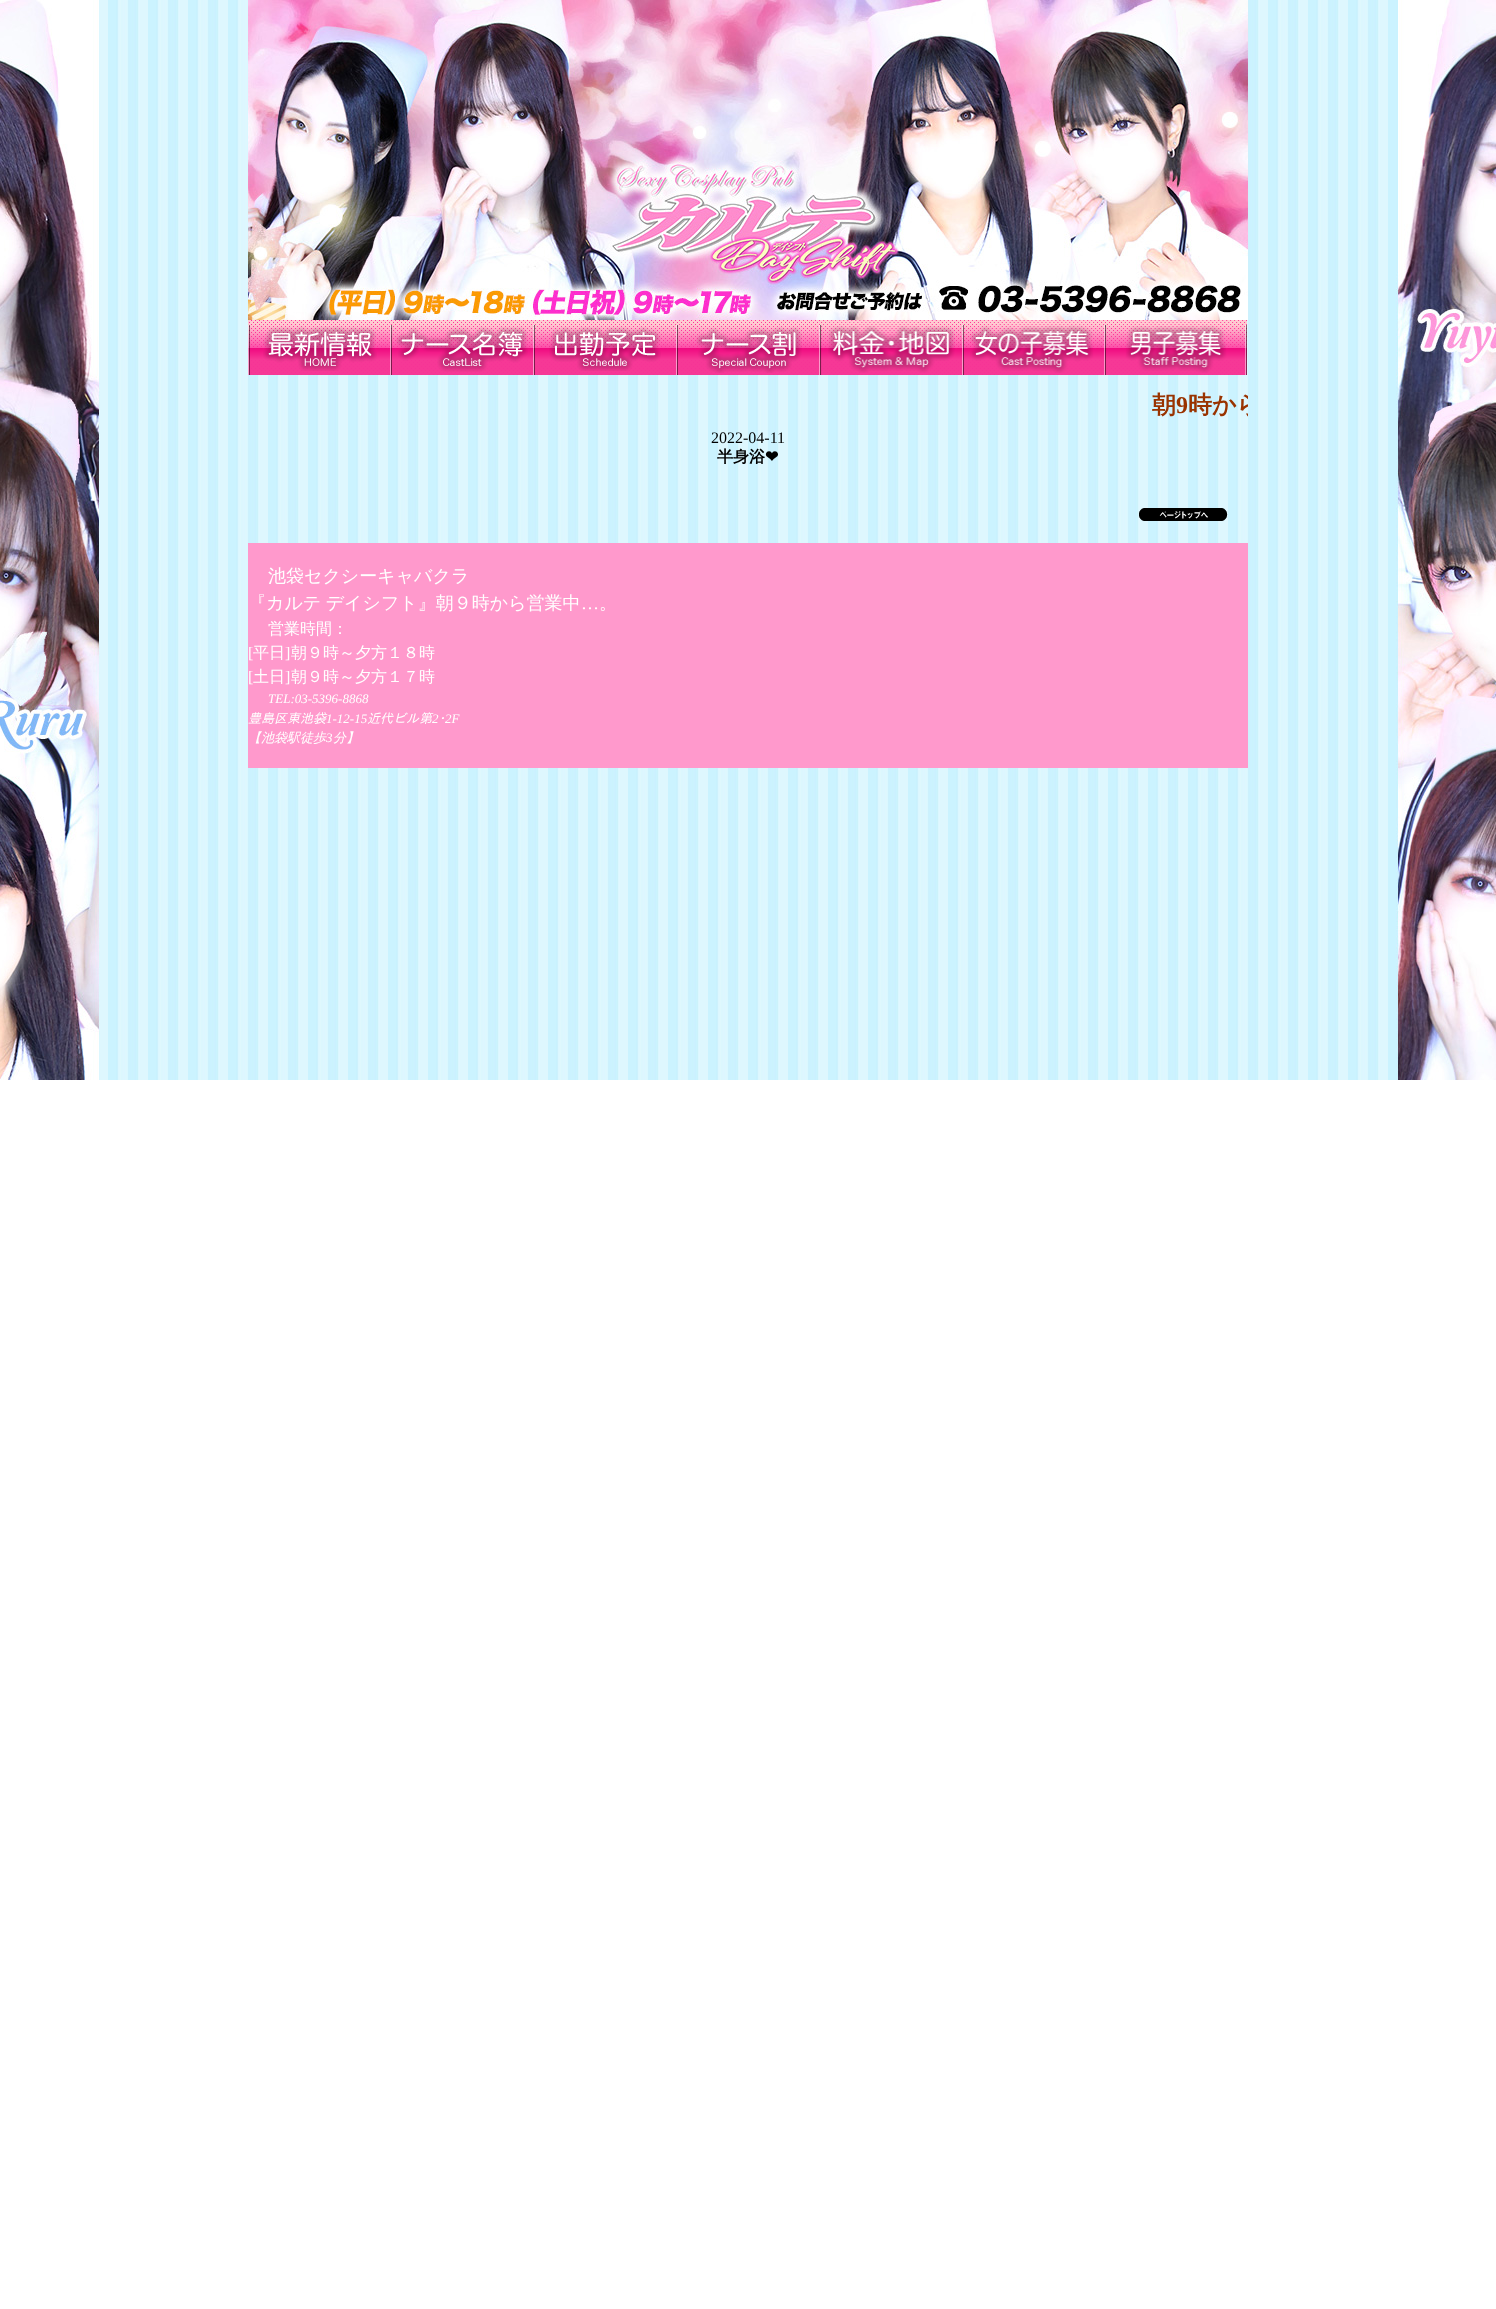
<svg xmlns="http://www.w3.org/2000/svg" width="1496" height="2309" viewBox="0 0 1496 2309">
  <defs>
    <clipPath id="clip1"><path d="M248 381h1000v48H248z"/></clipPath>
  </defs>
  <rect width="100%" height="100%" fill="#fff"/>
  <image x="0" y="0" width="1496" height="1080" href="img/1.png"/>
  <image x="248" y="0" width="1000" height="320" href="img/2.png"/>
  <image x="248" y="320" width="143" height="55" href="img/3.png"/>
  <image x="391" y="320" width="143" height="55" href="img/4.png"/>
  <image x="534" y="320" width="143" height="55" href="img/5.png"/>
  <image x="677" y="320" width="143" height="55" href="img/6.png"/>
  <image x="820" y="320" width="143" height="55" href="img/7.png"/>
  <image x="963" y="320" width="142" height="55" href="img/8.png"/>
  <image x="1105" y="320" width="142" height="55" href="img/9.png"/>
  <image x="1139" y="508" width="89" height="13" href="img/10.png"/>
  <path d="M248 543h1000v225H248z" fill="#f9c"/>
  <text x="1152" y="413" font-family="WenQuanYi Zen Hei" font-size="24" font-weight="bold" fill="#930">朝</text>
  <text x="1176" y="413" font-family="Liberation Serif" font-size="24" font-weight="bold" fill="#930">9</text>
  <g clip-path="url(#clip1)">
    <text x="1188" y="413" font-family="WenQuanYi Zen Hei" font-size="24" font-weight="bold" fill="#930">時から</text>
  </g>
  <text x="711" y="443" font-family="Liberation Serif" font-size="16" fill="#000">2022-04-11</text>
  <text x="717" y="462" font-family="WenQuanYi Zen Hei" font-size="16" font-weight="bold" fill="#000">半身浴</text>
  <text x="765" y="462" font-family="DejaVu Sans" font-size="16" font-weight="bold" fill="#000">❤︎</text>
  <g font-family="WenQuanYi Zen Hei" font-size="18" font-weight="500" fill="#fff">
    <text x="268" y="582">池袋セクシーキャバクラ</text>
    <text x="248" y="609" word-spacing="-1">『カルテ デイシフト』朝９時から営業中</text>
  </g>
  <text x="581" y="609" font-family="Liberation Serif" font-size="18" fill="#fff">…</text>
  <text x="599" y="609" font-family="WenQuanYi Zen Hei" font-size="18" font-weight="500" fill="#fff">。</text>
  <text x="268" y="634" font-family="WenQuanYi Zen Hei" font-size="16" font-weight="500" fill="#fff">営業時間：</text>
  <text x="248" y="658" font-family="Liberation Serif" font-size="16" fill="#fff">[</text>
  <text x="253" y="658" font-family="WenQuanYi Zen Hei" font-size="16" font-weight="500" fill="#fff">平日</text>
  <text x="285" y="658" font-family="Liberation Serif" font-size="16" fill="#fff">]</text>
  <text x="291" y="658" font-family="WenQuanYi Zen Hei" font-size="16" font-weight="500" fill="#fff">朝９時～夕方１８時</text>
  <text x="248" y="682" font-family="Liberation Serif" font-size="16" fill="#fff">[</text>
  <text x="253" y="682" font-family="WenQuanYi Zen Hei" font-size="16" font-weight="500" fill="#fff">土日</text>
  <text x="285" y="682" font-family="Liberation Serif" font-size="16" fill="#fff">]</text>
  <text x="291" y="682" font-family="WenQuanYi Zen Hei" font-size="16" font-weight="500" fill="#fff">朝９時～夕方１７時</text>
  <text x="268" y="703" font-family="Liberation Serif" font-size="13" font-style="italic" fill="#fff">TEL:03-5396-8868</text>
  <text x="248" y="723" font-family="IPAGothic" font-size="13" font-style="italic" fill="#fff">豊島区東池袋</text>
  <text x="326" y="723" font-family="Liberation Serif" font-size="13" font-style="italic" fill="#fff">1-12-15</text>
  <text x="367" y="723" font-family="IPAGothic" font-size="13" font-style="italic" fill="#fff">近代ビル第 ･</text>
  <g font-family="Liberation Serif" font-size="13" font-style="italic" fill="#fff">
    <text x="432" y="723">2</text>
    <text x="445" y="723">2F</text>
  </g>
  <text x="248" y="742" font-family="WenQuanYi Zen Hei" font-size="13" font-weight="500" font-style="italic" fill="#fff">【池袋駅徒歩</text>
  <text x="326" y="742" font-family="Liberation Serif" font-size="13" font-style="italic" fill="#fff">3</text>
  <text x="333" y="742" font-family="WenQuanYi Zen Hei" font-size="13" font-weight="500" font-style="italic" fill="#fff">分】</text>
</svg>
